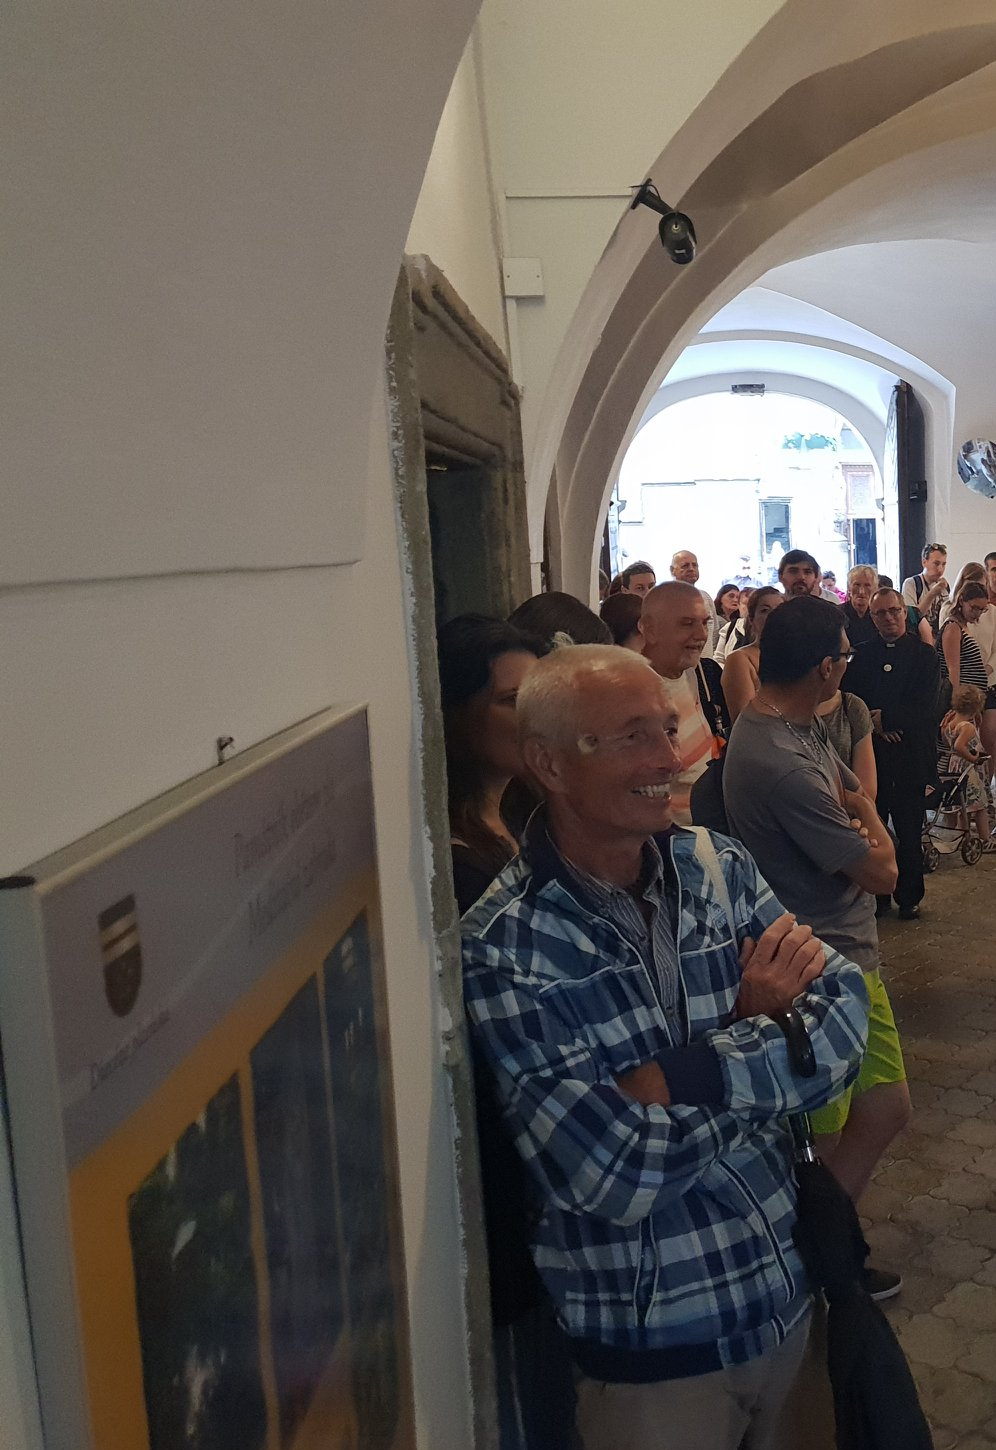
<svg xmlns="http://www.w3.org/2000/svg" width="996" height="1450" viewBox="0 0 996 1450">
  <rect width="100%" height="100%" fill="#fff"/>
  <image x="0" y="0" width="996" height="1450" href="img/1.png"/>
</svg>
